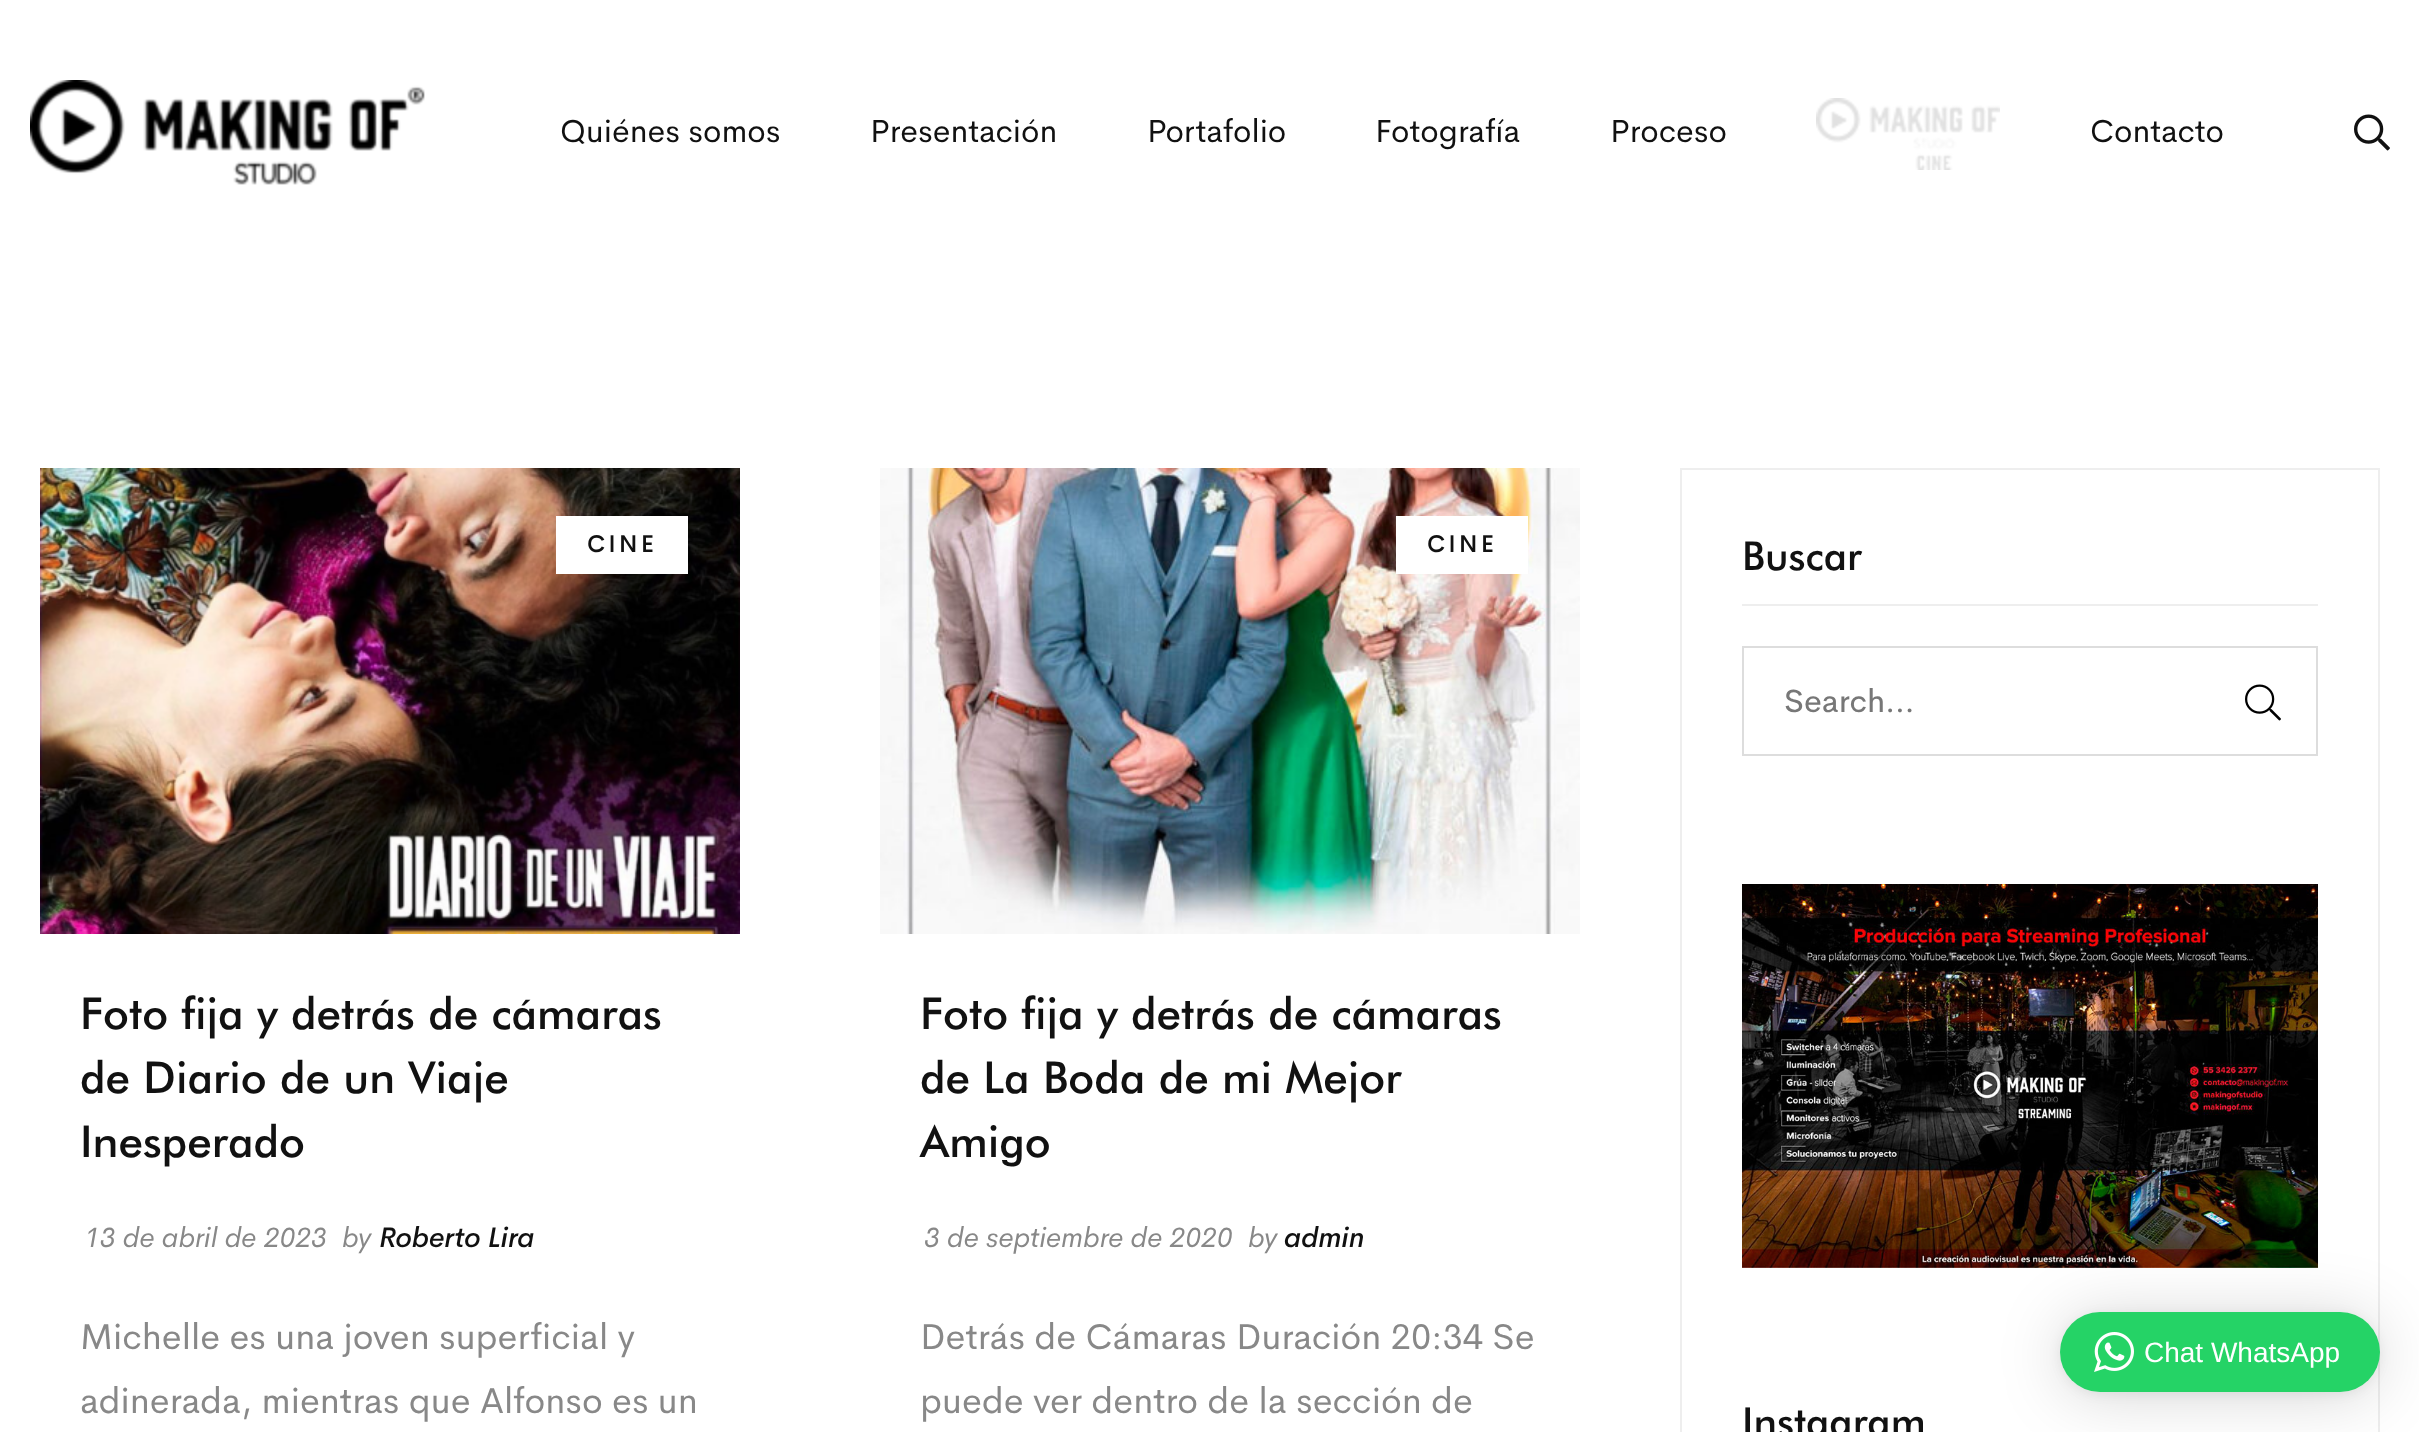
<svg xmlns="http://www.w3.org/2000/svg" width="2419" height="1432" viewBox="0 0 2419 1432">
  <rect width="100%" height="100%" fill="#fff"/>
  <image x="30" y="80" width="395" height="105" href="img/1.png"/>
  <image x="1816" y="98" width="184" height="72" href="img/2.png"/>
  <image x="2354" y="114" width="36" height="37" href="img/3.png"/>
  <image x="40" y="468" width="700" height="466" href="img/4.png"/>
  <path d="M556 516h132v58H556z" fill="#fff"/>
  <image x="880" y="468" width="700" height="466" href="img/5.png"/>
  <path d="M1396 516h132v58H1396z" fill="#fff"/>
  <path d="M1681 469h698v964H1681z" fill="none" stroke="#eee" stroke-width="2"/>
  <path d="M1742 604h576v2H1742z" fill="#eee"/>
  <path d="M1743 647h574v108H1743z" fill="none" stroke="#ddd" stroke-width="2"/>
  <image x="2245" y="684" width="36" height="37" href="img/6.png"/>
  <image x="1742" y="884" width="576" height="384" href="img/7.png"/>
  <rect x="2060" y="1316" width="320" height="80" rx="40" fill="#00000029" filter="blur(32px)"/>
  <rect x="2060" y="1314" width="320" height="80" rx="40" fill="#0000000f" filter="blur(6px)"/>
  <rect x="2060" y="1312" width="320" height="80" rx="40" fill="#25d366"/>
  <image x="2094" y="1332" width="40" height="40" href="img/8.png"/>
  <g font-family="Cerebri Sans" font-size="32" fill="#111">
    <text x="560" y="142">Quiénes somos</text>
    <text x="870" y="142">Presentación</text>
    <text x="1147" y="142">Portafolio</text>
    <text x="1375" y="142">Fotografía</text>
    <text x="1610" y="142">Proceso</text>
    <text x="2090" y="142">Contacto</text>
  </g>
  <text x="587" y="552" font-family="Cerebri Sans" font-size="24" font-weight="500" letter-spacing="3" fill="#111">CINE</text>
  <g font-family="Futura" font-size="44" font-weight="500" fill="#111">
    <text x="80" y="1029">Foto fija y detrás de cámaras</text>
    <text x="80" y="1093">de Diario de un Viaje</text>
    <text x="80" y="1157">Inesperado</text>
  </g>
  <g font-family="Cerebri Sans" font-size="28" font-style="italic" fill="#888">
    <text x="84" y="1247">13 de abril de 2023</text>
    <text x="342" y="1247">by</text>
  </g>
  <text x="379" y="1247" font-family="Cerebri Sans" font-size="28" font-weight="500" font-style="italic" fill="#111">Roberto Lira</text>
  <g font-family="Cerebri Sans" font-size="36" fill="#888">
    <text x="80" y="1349">Michelle es una joven superficial y</text>
    <text x="80" y="1413">adinerada, mientras que Alfonso es un</text>
  </g>
  <text x="1427" y="552" font-family="Cerebri Sans" font-size="24" font-weight="500" letter-spacing="3" fill="#111">CINE</text>
  <g font-family="Futura" font-size="44" font-weight="500" fill="#111">
    <text x="920" y="1029">Foto fija y detrás de cámaras</text>
    <text x="920" y="1093">de La Boda de mi Mejor</text>
    <text x="920" y="1157">Amigo</text>
  </g>
  <g font-family="Cerebri Sans" font-size="28" font-style="italic" fill="#888">
    <text x="924" y="1247">3 de septiembre de 2020</text>
    <text x="1248" y="1247">by</text>
  </g>
  <text x="1284" y="1247" font-family="Cerebri Sans" font-size="28" font-weight="500" font-style="italic" fill="#111">admin</text>
  <g font-family="Cerebri Sans" font-size="36" fill="#888">
    <text x="920" y="1349">Detrás de Cámaras Duración 20:34 Se</text>
    <text x="920" y="1413">puede ver dentro de la sección de</text>
  </g>
  <text x="1742" y="570" font-family="Futura" font-size="40" font-weight="500" fill="#111">Buscar</text>
  <text x="1784" y="712" font-family="'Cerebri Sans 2'" font-size="32" fill="#777">Search…</text>
  <text x="1742" y="1436" font-family="Futura" font-size="40" font-weight="500" fill="#111">Instagram</text>
  <text x="2144" y="1362" font-family="Liberation Sans" font-size="28" fill="#fff">Chat WhatsApp</text>
</svg>
